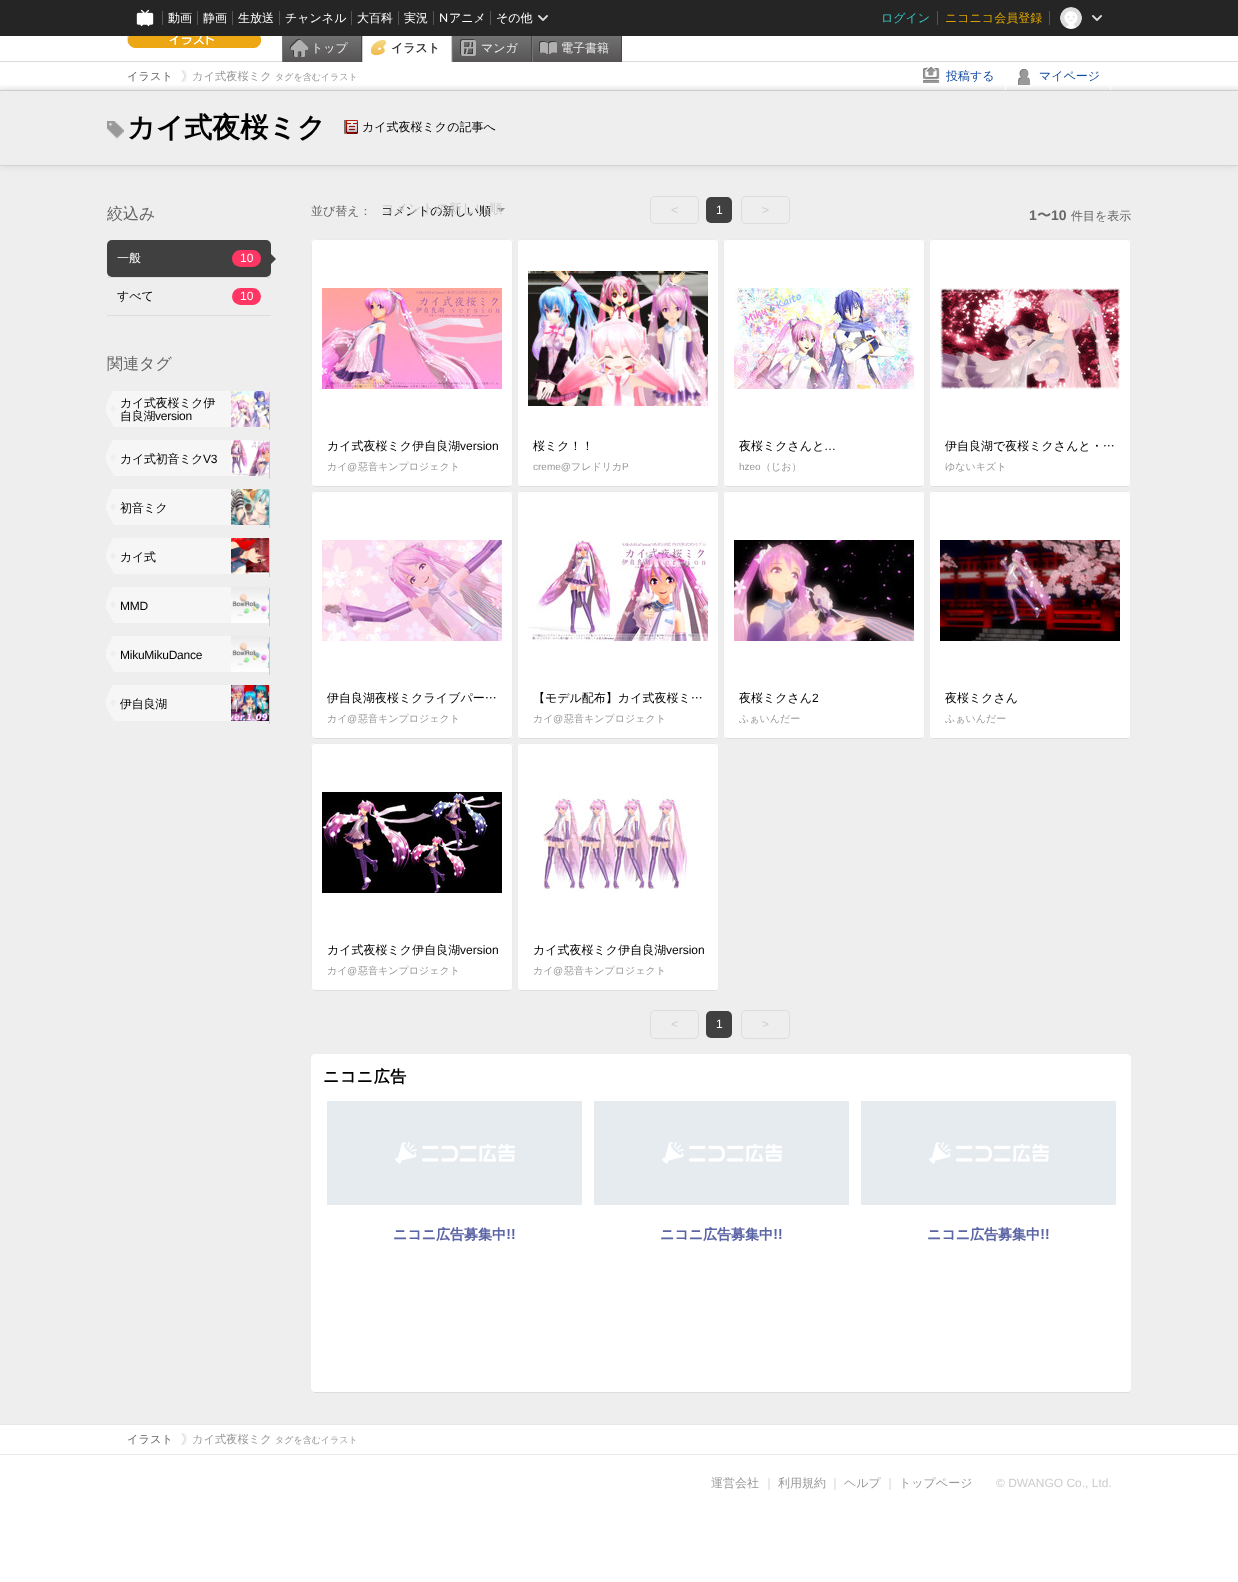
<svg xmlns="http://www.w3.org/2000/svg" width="1238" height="1582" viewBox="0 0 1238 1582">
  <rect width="100%" height="100%" fill="#eee"/>
  <path d="M0 36h1238v25H0z" fill="#fff"/>
  <image x="0" y="61" width="1238" height="30" href="img/4.png"/>
  <path d="M361 34h1v28H361z" fill="#494848"/>
  <image x="283" y="36" width="78" height="26" href="img/6.png"/>
  <path d="M282 62H283V37C283 35 284 34 285 34C283 34 282 35 282 37Z" fill="#777676"/>
  <image x="363" y="40" width="88" height="22" href="img/7.png"/>
  <path d="M365 31H449C451 31 452 32 452 34V62H362V34C362 32 363 31 365 31ZM365 32H449C450 32 451 33 451 34V62H363V34C363 33 364 32 365 32Z" fill="#ccc" fill-rule="evenodd"/>
  <path d="M531 34h1v28H531z" fill="#494848"/>
  <path d="M452 34h1v28H452z" fill="#777676"/>
  <image x="533" y="36" width="89" height="26" href="img/9.png"/>
  <path d="M621 62H622V37C622 35 621 34 619 34C620 34 621 35 621 37Z" fill="#494848"/>
  <path d="M532 34h1v28H532z" fill="#777676"/>
  <path d="M0 0h1238v36H0z" fill="#252525"/>
  <image x="136" y="9" width="18" height="18" href="img/1.png"/>
  <path d="M162 11h1v14H162z" fill="#555"/>
  <path d="M197 11h1v14H197z" fill="#555"/>
  <path d="M232 11h1v14H232z" fill="#555"/>
  <path d="M279 11h1v14H279z" fill="#555"/>
  <path d="M351 11h1v14H351z" fill="#555"/>
  <path d="M398 11h1v14H398z" fill="#555"/>
  <path d="M433 11h1v14H433z" fill="#555"/>
  <path d="M490 11h1v14H490z" fill="#555"/>
  <image x="538" y="15" width="10" height="6" href="img/2.png"/>
  <path d="M937 11h1v14H937z" fill="#555"/>
  <path d="M1049 11h1v14H1049z" fill="#555"/>
  <image x="1060" y="7" width="22" height="22" href="img/3.png"/>
  <image x="1092" y="15" width="10" height="6" href="img/2.png"/>
  <image x="127" y="36" width="134" height="12" href="img/5.png"/>
  <image x="453" y="36" width="78" height="26" href="img/8.png"/>
  <path d="M0 91h1238v75H0z" fill="#d6d6d6" filter="blur(3.5px)"/>
  <image x="181" y="70" width="6" height="12" href="img/10.png"/>
  <image x="923" y="67" width="17" height="16" href="img/11.png"/>
  <path d="M1005 85h1v5H1005z" fill="#fff"/>
  <image x="1018" y="69" width="12" height="16" href="img/12.png"/>
  <path d="M1110 85h1v5H1110z" fill="#fff"/>
  <path d="M0 91h1238v74H0z" fill="#eee"/>
  <path d="M0 165h1238v1H0z" fill="#d5d5d5"/>
  <image x="107" y="121" width="17" height="18" href="img/13.png"/>
  <image x="344" y="120" width="14" height="14" href="img/14.png"/>
  <rect x="107" y="240" width="164" height="37" rx="5" fill="#404040"/>
  <rect x="232" y="250" width="29" height="17" rx="8.5" fill="#ff3664"/>
  <path d="M271 264V254L276 259Z" fill="#404040"/>
  <path d="M107 277h164v1H107z" fill="#ddd"/>
  <path d="M107 315h164v1H107z" fill="#ddd"/>
  <rect x="232" y="288" width="29" height="17" rx="8.5" fill="#ff3664"/>
  <image x="106" y="391" width="164" height="36" href="img/15.png"/>
  <path d="M269 392h1v38H269z" fill="#ccc"/>
  <image x="231" y="391" width="38" height="36" href="img/16.png"/>
  <image x="106" y="440" width="164" height="36" href="img/15.png"/>
  <path d="M269 441h1v38H269z" fill="#ccc"/>
  <image x="231" y="440" width="38" height="36" href="img/17.png"/>
  <image x="106" y="489" width="164" height="36" href="img/15.png"/>
  <path d="M269 490h1v38H269z" fill="#ccc"/>
  <image x="231" y="489" width="38" height="36" href="img/18.png"/>
  <image x="106" y="538" width="164" height="36" href="img/15.png"/>
  <path d="M269 539h1v38H269z" fill="#ccc"/>
  <image x="231" y="538" width="38" height="36" href="img/19.png"/>
  <image x="106" y="587" width="164" height="36" href="img/15.png"/>
  <path d="M269 588h1v38H269z" fill="#ccc"/>
  <image x="231" y="587" width="38" height="36" href="img/20.png"/>
  <image x="106" y="636" width="164" height="36" href="img/15.png"/>
  <path d="M269 637h1v38H269z" fill="#ccc"/>
  <image x="231" y="636" width="38" height="36" href="img/21.png"/>
  <image x="106" y="685" width="164" height="36" href="img/15.png"/>
  <path d="M269 686h1v38H269z" fill="#ccc"/>
  <image x="231" y="685" width="38" height="36" href="img/22.png"/>
  <image x="497" y="208" width="8" height="4" href="img/23.png"/>
  <rect x="650.5" y="196.5" width="48" height="27" rx="4.5" fill="none" stroke="#ddd"/>
  <rect x="706" y="197" width="26" height="26" rx="5" fill="#404040"/>
  <rect x="741.5" y="196.5" width="48" height="27" rx="4.5" fill="none" stroke="#ddd"/>
  <rect x="311" y="239" width="202" height="248" rx="4" fill="#fff"/>
  <path d="M511.5 485.5C511 486 510 486.5 509 486.5H315C314 486.5 313 486 312.5 485.5" fill="none" stroke="#dfdfdf"/>
  <path d="M312.5 485.5C312 485 311.5 484 311.5 483V243C311.5 242 312 241 312.5 240.5C313 240 314 239.5 315 239.5H509C510 239.5 511 240 511.5 240.5C512 241 512.5 242 512.5 243V483C512.5 484 512 485 511.5 485.5" fill="none" stroke="#ebebeb"/>
  <image x="322" y="288" width="180" height="101" href="img/24.png"/>
  <rect x="517" y="239" width="202" height="248" rx="4" fill="#fff"/>
  <path d="M717.5 485.5C717 486 716 486.5 715 486.5H521C520 486.5 519 486 518.5 485.5" fill="none" stroke="#dfdfdf"/>
  <path d="M518.5 485.5C518 485 517.5 484 517.5 483V243C517.5 242 518 241 518.5 240.5C519 240 520 239.5 521 239.5H715C716 239.5 717 240 717.5 240.5C718 241 718.5 242 718.5 243V483C718.5 484 718 485 717.5 485.5" fill="none" stroke="#ebebeb"/>
  <image x="528" y="271" width="180" height="135" href="img/25.png"/>
  <rect x="723" y="239" width="202" height="248" rx="4" fill="#fff"/>
  <path d="M923.5 485.5C923 486 922 486.5 921 486.5H727C726 486.5 725 486 724.5 485.5" fill="none" stroke="#dfdfdf"/>
  <path d="M724.5 485.5C724 485 723.5 484 723.5 483V243C723.5 242 724 241 724.5 240.5C725 240 726 239.5 727 239.5H921C922 239.5 923 240 923.5 240.5C924 241 924.5 242 924.5 243V483C924.5 484 924 485 923.5 485.5" fill="none" stroke="#ebebeb"/>
  <image x="734" y="288" width="180" height="101" href="img/26.png"/>
  <rect x="929" y="239" width="202" height="248" rx="4" fill="#fff"/>
  <path d="M1129.5 485.5C1129 486 1128 486.5 1127 486.5H933C932 486.5 931 486 930.5 485.5" fill="none" stroke="#dfdfdf"/>
  <path d="M930.5 485.5C930 485 929.5 484 929.5 483V243C929.5 242 930 241 930.5 240.5C931 240 932 239.5 933 239.5H1127C1128 239.5 1129 240 1129.5 240.5C1130 241 1130.5 242 1130.5 243V483C1130.5 484 1130 485 1129.5 485.5" fill="none" stroke="#ebebeb"/>
  <image x="940" y="288" width="180" height="101" href="img/27.png"/>
  <rect x="311" y="491" width="202" height="248" rx="4" fill="#fff"/>
  <path d="M511.5 737.5C511 738 510 738.5 509 738.5H315C314 738.5 313 738 312.5 737.5" fill="none" stroke="#dfdfdf"/>
  <path d="M312.5 737.5C312 737 311.5 736 311.5 735V495C311.5 494 312 493 312.5 492.5C313 492 314 491.5 315 491.5H509C510 491.5 511 492 511.5 492.5C512 493 512.5 494 512.5 495V735C512.5 736 512 737 511.5 737.5" fill="none" stroke="#ebebeb"/>
  <image x="322" y="540" width="180" height="101" href="img/28.png"/>
  <rect x="517" y="491" width="202" height="248" rx="4" fill="#fff"/>
  <path d="M717.5 737.5C717 738 716 738.5 715 738.5H521C520 738.5 519 738 518.5 737.5" fill="none" stroke="#dfdfdf"/>
  <path d="M518.5 737.5C518 737 517.5 736 517.5 735V495C517.5 494 518 493 518.5 492.5C519 492 520 491.5 521 491.5H715C716 491.5 717 492 717.5 492.5C718 493 718.5 494 718.5 495V735C718.5 736 718 737 717.5 737.5" fill="none" stroke="#ebebeb"/>
  <image x="528" y="540" width="180" height="101" href="img/29.png"/>
  <rect x="723" y="491" width="202" height="248" rx="4" fill="#fff"/>
  <path d="M923.5 737.5C923 738 922 738.5 921 738.5H727C726 738.5 725 738 724.5 737.5" fill="none" stroke="#dfdfdf"/>
  <path d="M724.5 737.5C724 737 723.5 736 723.5 735V495C723.5 494 724 493 724.5 492.5C725 492 726 491.5 727 491.5H921C922 491.5 923 492 923.5 492.5C924 493 924.5 494 924.5 495V735C924.5 736 924 737 923.5 737.5" fill="none" stroke="#ebebeb"/>
  <image x="734" y="540" width="180" height="101" href="img/30.png"/>
  <rect x="929" y="491" width="202" height="248" rx="4" fill="#fff"/>
  <path d="M1129.5 737.5C1129 738 1128 738.5 1127 738.5H933C932 738.5 931 738 930.5 737.5" fill="none" stroke="#dfdfdf"/>
  <path d="M930.5 737.5C930 737 929.5 736 929.5 735V495C929.5 494 930 493 930.5 492.5C931 492 932 491.5 933 491.5H1127C1128 491.5 1129 492 1129.5 492.5C1130 493 1130.5 494 1130.5 495V735C1130.5 736 1130 737 1129.5 737.5" fill="none" stroke="#ebebeb"/>
  <image x="940" y="540" width="180" height="101" href="img/31.png"/>
  <rect x="311" y="743" width="202" height="248" rx="4" fill="#fff"/>
  <path d="M511.5 989.5C511 990 510 990.5 509 990.5H315C314 990.5 313 990 312.5 989.5" fill="none" stroke="#dfdfdf"/>
  <path d="M312.5 989.5C312 989 311.5 988 311.5 987V747C311.5 746 312 745 312.5 744.5C313 744 314 743.5 315 743.5H509C510 743.5 511 744 511.5 744.5C512 745 512.5 746 512.5 747V987C512.5 988 512 989 511.5 989.5" fill="none" stroke="#ebebeb"/>
  <image x="322" y="792" width="180" height="101" href="img/32.png"/>
  <rect x="517" y="743" width="202" height="248" rx="4" fill="#fff"/>
  <path d="M717.5 989.5C717 990 716 990.5 715 990.5H521C520 990.5 519 990 518.5 989.5" fill="none" stroke="#dfdfdf"/>
  <path d="M518.5 989.5C518 989 517.5 988 517.5 987V747C517.5 746 518 745 518.5 744.5C519 744 520 743.5 521 743.5H715C716 743.5 717 744 717.5 744.5C718 745 718.5 746 718.5 747V987C718.5 988 718 989 717.5 989.5" fill="none" stroke="#ebebeb"/>
  <image x="543" y="793" width="145" height="99" href="img/33.png"/>
  <rect x="650.5" y="1010.5" width="48" height="28" rx="4.5" fill="none" stroke="#ddd"/>
  <rect x="706" y="1011" width="26" height="27" rx="5" fill="#404040"/>
  <rect x="741.5" y="1010.5" width="48" height="28" rx="4.5" fill="none" stroke="#ddd"/>
  <path d="M316 1054H1126C1129 1054 1131 1056 1131 1059V1388C1131 1390 1129 1392 1126 1392H316C313 1392 311 1390 311 1388V1059C311 1056 313 1054 316 1054Z" fill="#fff"/>
  <path d="M314 1392h815v1H314z" fill="#ddd"/>
  <image x="327" y="1101" width="789" height="141" href="img/34.png"/>
  <path d="M0 1425h1238v29H0z" fill="#fff"/>
  <path d="M0 1424h1238v1H0z" fill="#e8e8e8"/>
  <path d="M0 1454h1238v1H0z" fill="#e8e8e8"/>
  <image x="181" y="1433" width="6" height="12" href="img/10.png"/>
  <path d="M0 1455h1238v127H0z" fill="#fff"/>
  <g font-family="WenQuanYi Zen Hei" font-size="12" font-weight="500" fill="#fff">
    <text x="168" y="22">動画</text>
    <text x="203" y="22">静画</text>
    <text x="238" y="22">生放送</text>
    <text x="285" y="22">チャンネル</text>
    <text x="357" y="22">大百科</text>
    <text x="404" y="22">実況</text>
  </g>
  <text x="439" y="22" font-family="Lato" font-size="12" fill="#fff">N</text>
  <g font-family="WenQuanYi Zen Hei" font-size="12" font-weight="500" fill="#fff">
    <text x="449" y="22">アニメ</text>
    <text x="496" y="22">その他</text>
  </g>
  <text x="881" y="22" font-family="WenQuanYi Zen Hei" font-size="12" font-weight="500" fill="#39c4c1">ログイン</text>
  <text x="945" y="22" font-family="WenQuanYi Zen Hei" font-size="12" font-weight="500" fill="#d9a300">ニコニコ会員登録</text>
  <text x="311" y="52" font-family="WenQuanYi Zen Hei" font-size="12" font-weight="500" fill="#ebebeb">トップ</text>
  <text x="391" y="52" font-family="WenQuanYi Zen Hei" font-size="12" font-weight="bold" fill="#333">イラスト</text>
  <g font-family="WenQuanYi Zen Hei" font-size="12" font-weight="500" fill="#ebebeb">
    <text x="481" y="52">マンガ</text>
    <text x="561" y="52">電子書籍</text>
  </g>
  <text x="127" y="80" font-family="WenQuanYi Zen Hei" font-size="11.25" font-weight="500" fill="#666">イラスト</text>
  <text x="192" y="80" font-family="WenQuanYi Zen Hei" font-size="11.25" font-weight="500" fill="#999">カイ式夜桜ミク</text>
  <text x="275" y="80" font-family="WenQuanYi Zen Hei" font-size="9" font-weight="500" fill="#999">タグを含むイラスト</text>
  <g font-family="WenQuanYi Zen Hei" font-size="12" font-weight="500" fill="#114a9f">
    <text x="946" y="80">投稿する</text>
    <text x="1039" y="80">マイページ</text>
  </g>
  <text x="127" y="137" font-family="WenQuanYi Zen Hei" font-size="28" font-weight="bold" fill="#000">カイ式夜桜ミク</text>
  <text x="362" y="131" font-family="WenQuanYi Zen Hei" font-size="12" font-weight="500" fill="#000">カイ式夜桜ミクの記事へ</text>
  <text x="107" y="219" font-family="WenQuanYi Zen Hei" font-size="16" font-weight="500" fill="#666">絞込み</text>
  <text x="117" y="262" font-family="WenQuanYi Zen Hei" font-size="12" font-weight="500" fill="#fff">一般</text>
  <text x="240" y="262" font-family="Liberation Sans" font-size="12" fill="#fff">10</text>
  <text x="117" y="300" font-family="WenQuanYi Zen Hei" font-size="12" font-weight="500" fill="#000">すべて</text>
  <text x="240" y="300" font-family="Liberation Sans" font-size="12" fill="#fff">10</text>
  <text x="107" y="369" font-family="WenQuanYi Zen Hei" font-size="16" font-weight="500" fill="#666">関連タグ</text>
  <g font-family="WenQuanYi Zen Hei" font-size="12" font-weight="500" letter-spacing="-0.25" fill="#000">
    <text x="120" y="407">カイ式夜桜ミク伊</text>
    <text x="120" y="420">自良湖</text>
  </g>
  <text x="155" y="420" font-family="Liberation Sans" font-size="12" letter-spacing="-0.25" fill="#000">version</text>
  <text x="120" y="463" font-family="WenQuanYi Zen Hei" font-size="12" font-weight="500" letter-spacing="-0.25" fill="#000">カイ式初音ミク</text>
  <text x="203" y="463" font-family="Liberation Sans" font-size="12" letter-spacing="-0.25" fill="#000">V3</text>
  <g font-family="WenQuanYi Zen Hei" font-size="12" font-weight="500" letter-spacing="-0.25" fill="#000">
    <text x="120" y="512">初音ミク</text>
    <text x="120" y="561">カイ式</text>
  </g>
  <g font-family="Liberation Sans" font-size="12" letter-spacing="-0.25" fill="#000">
    <text x="120" y="610">MMD</text>
    <text x="120" y="659">MikuMikuDance</text>
  </g>
  <text x="120" y="708" font-family="WenQuanYi Zen Hei" font-size="12" font-weight="500" letter-spacing="-0.25" fill="#000">伊自良湖</text>
  <text x="311" y="215" font-family="WenQuanYi Zen Hei" font-size="12" font-weight="500" fill="#666">並び替え：</text>
  <text x="381" y="215" font-family="WenQuanYi Zen Hei" font-size="12" font-weight="500" fill="#000">コメントの新しい順</text>
  <text x="381" y="213" font-family="WenQuanYi Zen Hei" font-size="13.25" font-weight="500" fill="#ccc">コメントの新しい順</text>
  <text x="671" y="214" font-family="Liberation Sans" font-size="12" fill="#ccc">&lt;</text>
  <text x="716" y="214" font-family="Liberation Sans" font-size="12" fill="#fff">1</text>
  <text x="762" y="214" font-family="Liberation Sans" font-size="12" fill="#ccc">&gt;</text>
  <text x="1029" y="220" font-family="Liberation Sans" font-size="14" font-weight="bold" fill="#666">1</text>
  <text x="1037" y="220" font-family="WenQuanYi Zen Hei" font-size="14" font-weight="bold" fill="#666">〜</text>
  <text x="1051" y="220" font-family="Liberation Sans" font-size="14" font-weight="bold" fill="#666">10</text>
  <text x="1071" y="220" font-family="WenQuanYi Zen Hei" font-size="12" font-weight="500" fill="#666">件目を表示</text>
  <text x="327" y="450" font-family="WenQuanYi Zen Hei" font-size="12" font-weight="500" fill="#000">カイ式夜桜ミク伊自良湖</text>
  <text x="460" y="450" font-family="Liberation Sans" font-size="12" fill="#000">version</text>
  <text x="327" y="470" font-family="WenQuanYi Zen Hei" font-size="10" font-weight="500" fill="#999">カイ</text>
  <text x="347" y="470" font-family="Liberation Sans" font-size="10" fill="#999">@</text>
  <text x="358" y="470" font-family="WenQuanYi Zen Hei" font-size="10" font-weight="500" fill="#999">惡音キンプロジェクト</text>
  <text x="533" y="450" font-family="WenQuanYi Zen Hei" font-size="12" font-weight="500" fill="#000">桜ミク！！</text>
  <text x="533" y="470" font-family="Liberation Sans" font-size="10" fill="#999">creme@</text>
  <text x="571" y="470" font-family="WenQuanYi Zen Hei" font-size="10" font-weight="500" fill="#999">フレドリカ</text>
  <text x="622" y="470" font-family="Liberation Sans" font-size="10" fill="#999">P</text>
  <text x="739" y="450" font-family="WenQuanYi Zen Hei" font-size="12" font-weight="500" fill="#000">夜桜ミクさんと</text>
  <text x="824" y="450" font-family="Liberation Sans" font-size="12" fill="#000">…</text>
  <text x="739" y="470" font-family="Liberation Sans" font-size="10" fill="#999">hzeo</text>
  <text x="761" y="470" font-family="WenQuanYi Zen Hei" font-size="10" font-weight="500" fill="#999">（じお）</text>
  <text x="945" y="450" font-family="WenQuanYi Zen Hei" font-size="12" font-weight="500" fill="#000">伊自良湖で夜桜ミクさんと・…</text>
  <text x="945" y="470" font-family="WenQuanYi Zen Hei" font-size="10" font-weight="500" fill="#999">ゆないキズト</text>
  <text x="327" y="702" font-family="WenQuanYi Zen Hei" font-size="12" font-weight="500" fill="#000">伊自良湖夜桜ミクライブパー…</text>
  <text x="327" y="722" font-family="WenQuanYi Zen Hei" font-size="10" font-weight="500" fill="#999">カイ</text>
  <text x="347" y="722" font-family="Liberation Sans" font-size="10" fill="#999">@</text>
  <text x="358" y="722" font-family="WenQuanYi Zen Hei" font-size="10" font-weight="500" fill="#999">惡音キンプロジェクト</text>
  <text x="533" y="702" font-family="WenQuanYi Zen Hei" font-size="12" font-weight="500" fill="#000">【モデル配布】カイ式夜桜ミ…</text>
  <text x="533" y="722" font-family="WenQuanYi Zen Hei" font-size="10" font-weight="500" fill="#999">カイ</text>
  <text x="553" y="722" font-family="Liberation Sans" font-size="10" fill="#999">@</text>
  <text x="564" y="722" font-family="WenQuanYi Zen Hei" font-size="10" font-weight="500" fill="#999">惡音キンプロジェクト</text>
  <text x="739" y="702" font-family="WenQuanYi Zen Hei" font-size="12" font-weight="500" fill="#000">夜桜ミクさん</text>
  <text x="812" y="702" font-family="Liberation Sans" font-size="12" fill="#000">2</text>
  <text x="739" y="722" font-family="WenQuanYi Zen Hei" font-size="10" font-weight="500" fill="#999">ふぁいんだー</text>
  <text x="945" y="702" font-family="WenQuanYi Zen Hei" font-size="12" font-weight="500" fill="#000">夜桜ミクさん</text>
  <text x="945" y="722" font-family="WenQuanYi Zen Hei" font-size="10" font-weight="500" fill="#999">ふぁいんだー</text>
  <text x="327" y="954" font-family="WenQuanYi Zen Hei" font-size="12" font-weight="500" fill="#000">カイ式夜桜ミク伊自良湖</text>
  <text x="460" y="954" font-family="Liberation Sans" font-size="12" fill="#000">version</text>
  <text x="327" y="974" font-family="WenQuanYi Zen Hei" font-size="10" font-weight="500" fill="#999">カイ</text>
  <text x="347" y="974" font-family="Liberation Sans" font-size="10" fill="#999">@</text>
  <text x="358" y="974" font-family="WenQuanYi Zen Hei" font-size="10" font-weight="500" fill="#999">惡音キンプロジェクト</text>
  <text x="533" y="954" font-family="WenQuanYi Zen Hei" font-size="12" font-weight="500" fill="#000">カイ式夜桜ミク伊自良湖</text>
  <text x="666" y="954" font-family="Liberation Sans" font-size="12" fill="#000">version</text>
  <text x="533" y="974" font-family="WenQuanYi Zen Hei" font-size="10" font-weight="500" fill="#999">カイ</text>
  <text x="553" y="974" font-family="Liberation Sans" font-size="10" fill="#999">@</text>
  <text x="564" y="974" font-family="WenQuanYi Zen Hei" font-size="10" font-weight="500" fill="#999">惡音キンプロジェクト</text>
  <text x="671" y="1028" font-family="Liberation Sans" font-size="12" fill="#ccc">&lt;</text>
  <text x="716" y="1028" font-family="Liberation Sans" font-size="12" fill="#fff">1</text>
  <text x="762" y="1028" font-family="Liberation Sans" font-size="12" fill="#ccc">&gt;</text>
  <text x="323" y="1082" font-family="WenQuanYi Zen Hei" font-size="16" font-weight="bold" letter-spacing="0.5" fill="#000">ニコニ広告</text>
  <text x="127" y="1443" font-family="WenQuanYi Zen Hei" font-size="11.25" font-weight="500" fill="#666">イラスト</text>
  <text x="192" y="1443" font-family="WenQuanYi Zen Hei" font-size="11.25" font-weight="500" fill="#999">カイ式夜桜ミク</text>
  <text x="275" y="1443" font-family="WenQuanYi Zen Hei" font-size="9" font-weight="500" fill="#999">タグを含むイラスト</text>
  <text x="711" y="1487" font-family="WenQuanYi Zen Hei" font-size="12" font-weight="500" fill="#999">運営会社</text>
  <text x="763" y="1487" font-family="WenQuanYi Zen Hei" font-size="12" font-weight="500" fill="#ccc">｜</text>
  <text x="778" y="1487" font-family="WenQuanYi Zen Hei" font-size="12" font-weight="500" fill="#999">利用規約</text>
  <text x="829" y="1487" font-family="WenQuanYi Zen Hei" font-size="12" font-weight="500" fill="#ccc">｜</text>
  <text x="844" y="1487" font-family="WenQuanYi Zen Hei" font-size="12" font-weight="500" fill="#999">ヘルプ</text>
  <text x="884" y="1487" font-family="WenQuanYi Zen Hei" font-size="12" font-weight="500" fill="#ccc">｜</text>
  <text x="899" y="1487" font-family="WenQuanYi Zen Hei" font-size="12" font-weight="500" fill="#999">トップページ</text>
  <text x="996" y="1487" font-family="Liberation Sans" font-size="12" fill="#ccc">© DWANGO Co., Ltd.</text>
</svg>
